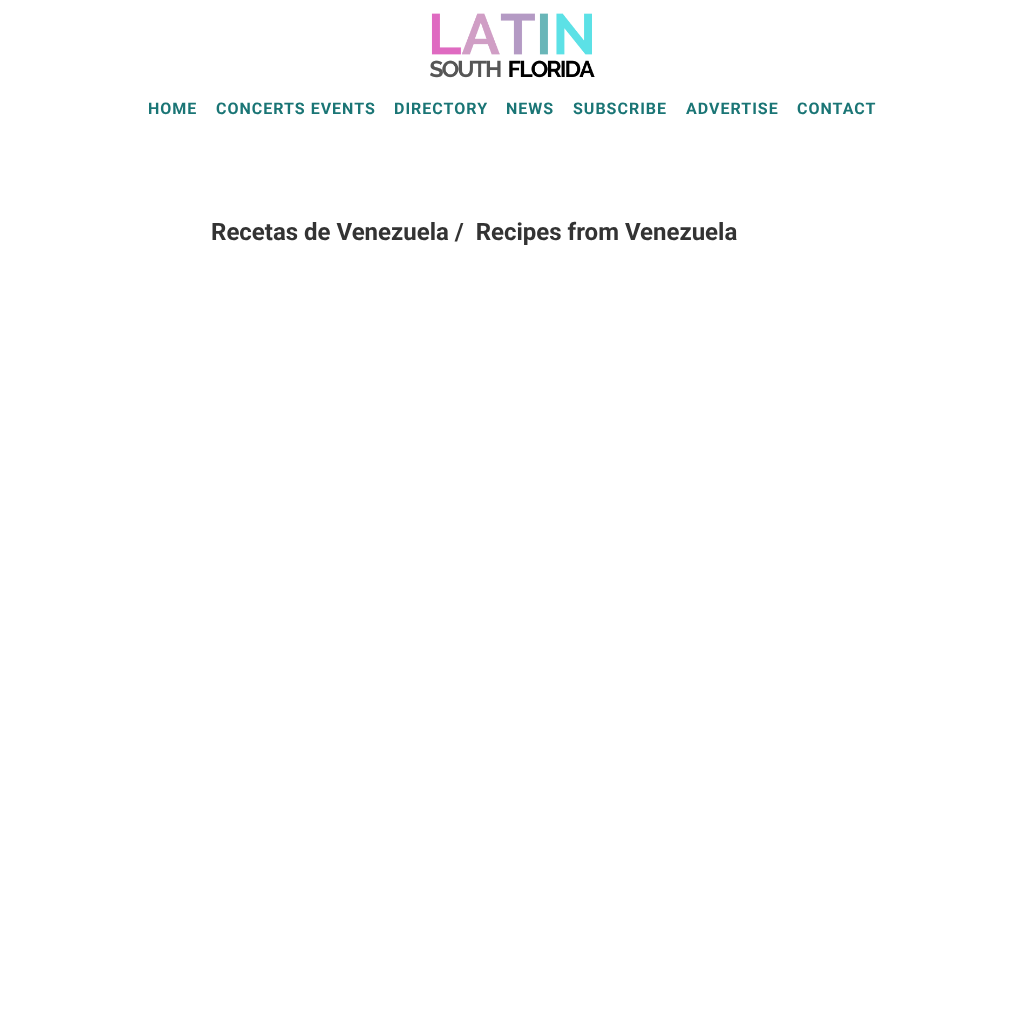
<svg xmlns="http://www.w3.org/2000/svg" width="1024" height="1024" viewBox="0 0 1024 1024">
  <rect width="100%" height="100%" fill="#fff"/>
  <image x="430" y="13" width="165" height="65" href="img/1.png"/>
  <g font-family="Roboto" font-size="16" font-weight="bold" letter-spacing="1" fill="#1a7575">
    <text x="148" y="114">HOME</text>
    <text x="216" y="114">CONCERTS EVENTS</text>
    <text x="394" y="114">DIRECTORY</text>
    <text x="506" y="114">NEWS</text>
    <text x="573" y="114">SUBSCRIBE</text>
    <text x="686" y="114">ADVERTISE</text>
    <text x="797" y="114">CONTACT</text>
  </g>
  <text x="211" y="240" font-family="Roboto" font-size="24" font-weight="bold" fill="#333" xml:space="preserve">Recetas de Venezuela /  Recipes from Venezuela</text>
</svg>
